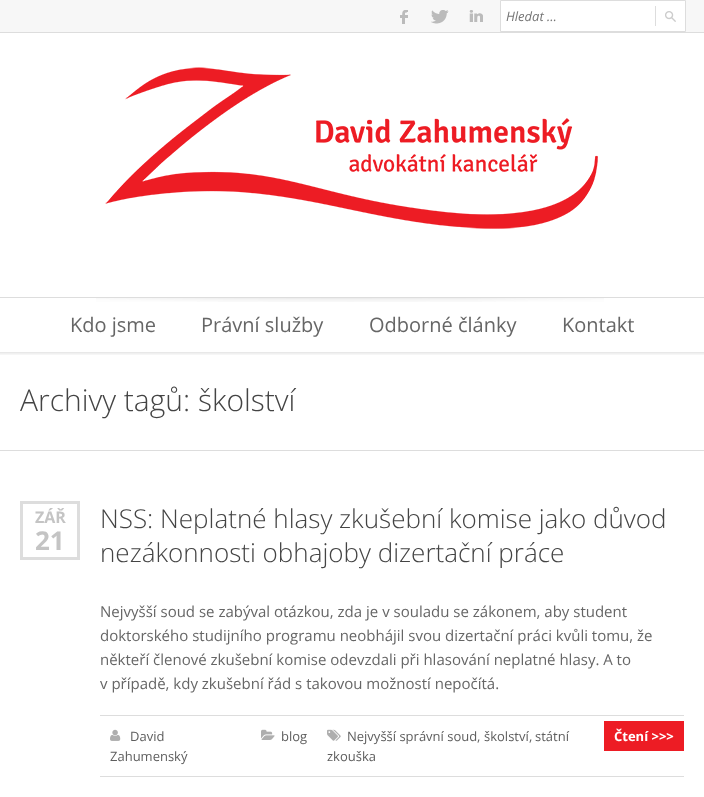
<svg xmlns="http://www.w3.org/2000/svg" width="704" height="797" viewBox="0 0 704 797">
  <rect width="100%" height="100%" fill="#fff"/>
  <path d="M0 0h704v32H0z" fill="#f7f7f7"/>
  <path d="M0 32h704v1H0z" fill="#ddd"/>
  <image x="400" y="10" width="8" height="14" href="img/1.png"/>
  <image x="431" y="10" width="18" height="14" href="img/2.png"/>
  <image x="469" y="10" width="14" height="12" href="img/3.png"/>
  <path d="M500.5 0.5h185v31H500.5z" fill="#fff" stroke="#ddd"/>
  <image x="665" y="11" width="11" height="11" href="img/4.png"/>
  <path d="M655 6h1v20H655z" fill="#ddd"/>
  <image x="105" y="67" width="493" height="162" href="img/5.png"/>
  <image x="96" y="298" width="508" height="4" href="img/6.png"/>
  <path d="M0 297h704v1H0z" fill="#ddd"/>
  <image x="0" y="352" width="704" height="3" href="img/7.png"/>
  <path d="M0 450h704v1H0z" fill="#ddd"/>
  <path d="M21.5 502.5h57v56H21.5z" fill="none" stroke="#ddd" stroke-width="3"/>
  <path d="M100 715h584v1H100z" fill="#ddd"/>
  <path d="M100 776h584v1H100z" fill="#ddd"/>
  <image x="110" y="729" width="11" height="12" href="img/8.png"/>
  <image x="261" y="729" width="14" height="11" href="img/9.png"/>
  <image x="327" y="729" width="14" height="12" href="img/10.png"/>
  <path d="M604 721h80v30H604z" fill="#ed1c24"/>
  <text x="506" y="21" font-family="Open Sans" font-size="13" font-style="italic" fill="#757575">Hledat …</text>
  <g font-family="Open Sans" font-size="20" fill="#666">
    <text x="70" y="332">Kdo jsme</text>
    <text x="201" y="332">Právní služby</text>
    <text x="369" y="332">Odborné články</text>
    <text x="562" y="332">Kontakt</text>
  </g>
  <text x="20" y="411" font-family="Open Sans" font-size="30" font-weight="300" fill="#444">Archivy tagů: školství</text>
  <text x="35" y="523" font-family="Open Sans" font-size="16" font-weight="bold" fill="#c4c4c4">ZÁŘ</text>
  <text x="35" y="550" font-family="Open Sans" font-size="26" font-weight="bold" fill="#c4c4c4">21</text>
  <g font-family="Open Sans" font-size="26" font-weight="300" fill="#444">
    <text x="100" y="528">NSS: Neplatné hlasy zkušební komise jako důvod</text>
    <text x="100" y="562">nezákonnosti obhajoby dizertační práce</text>
  </g>
  <g font-family="Open Sans" font-size="15" fill="#666">
    <text x="100" y="617">Nejvyšší soud se zabýval otázkou, zda je v souladu se zákonem, aby student</text>
    <text x="100" y="641">doktorského studijního programu neobhájil svou dizertační práci kvůli tomu, že</text>
    <text x="100" y="665">někteří členové zkušební komise odevzdali při hlasování neplatné hlasy. A to</text>
    <text x="100" y="689">v případě, kdy zkušební řád s takovou možností nepočítá.</text>
  </g>
  <g font-family="Open Sans" font-size="13" fill="#5e5e5e">
    <text x="130" y="741">David</text>
    <text x="110" y="761">Zahumenský</text>
    <text x="281" y="741">blog</text>
    <text x="347" y="741">Nejvyšší správní soud</text>
  </g>
  <text x="477" y="741" font-family="Open Sans" font-size="13" fill="#666">,</text>
  <text x="484" y="741" font-family="Open Sans" font-size="13" fill="#5e5e5e">školství</text>
  <text x="529" y="741" font-family="Open Sans" font-size="13" fill="#666">,</text>
  <g font-family="Open Sans" font-size="13" fill="#5e5e5e">
    <text x="535" y="741">státní</text>
    <text x="327" y="761">zkouška</text>
  </g>
  <text x="614" y="741" font-family="Open Sans" font-size="13" font-weight="bold" fill="#fff">Čtení &gt;&gt;&gt;</text>
</svg>
